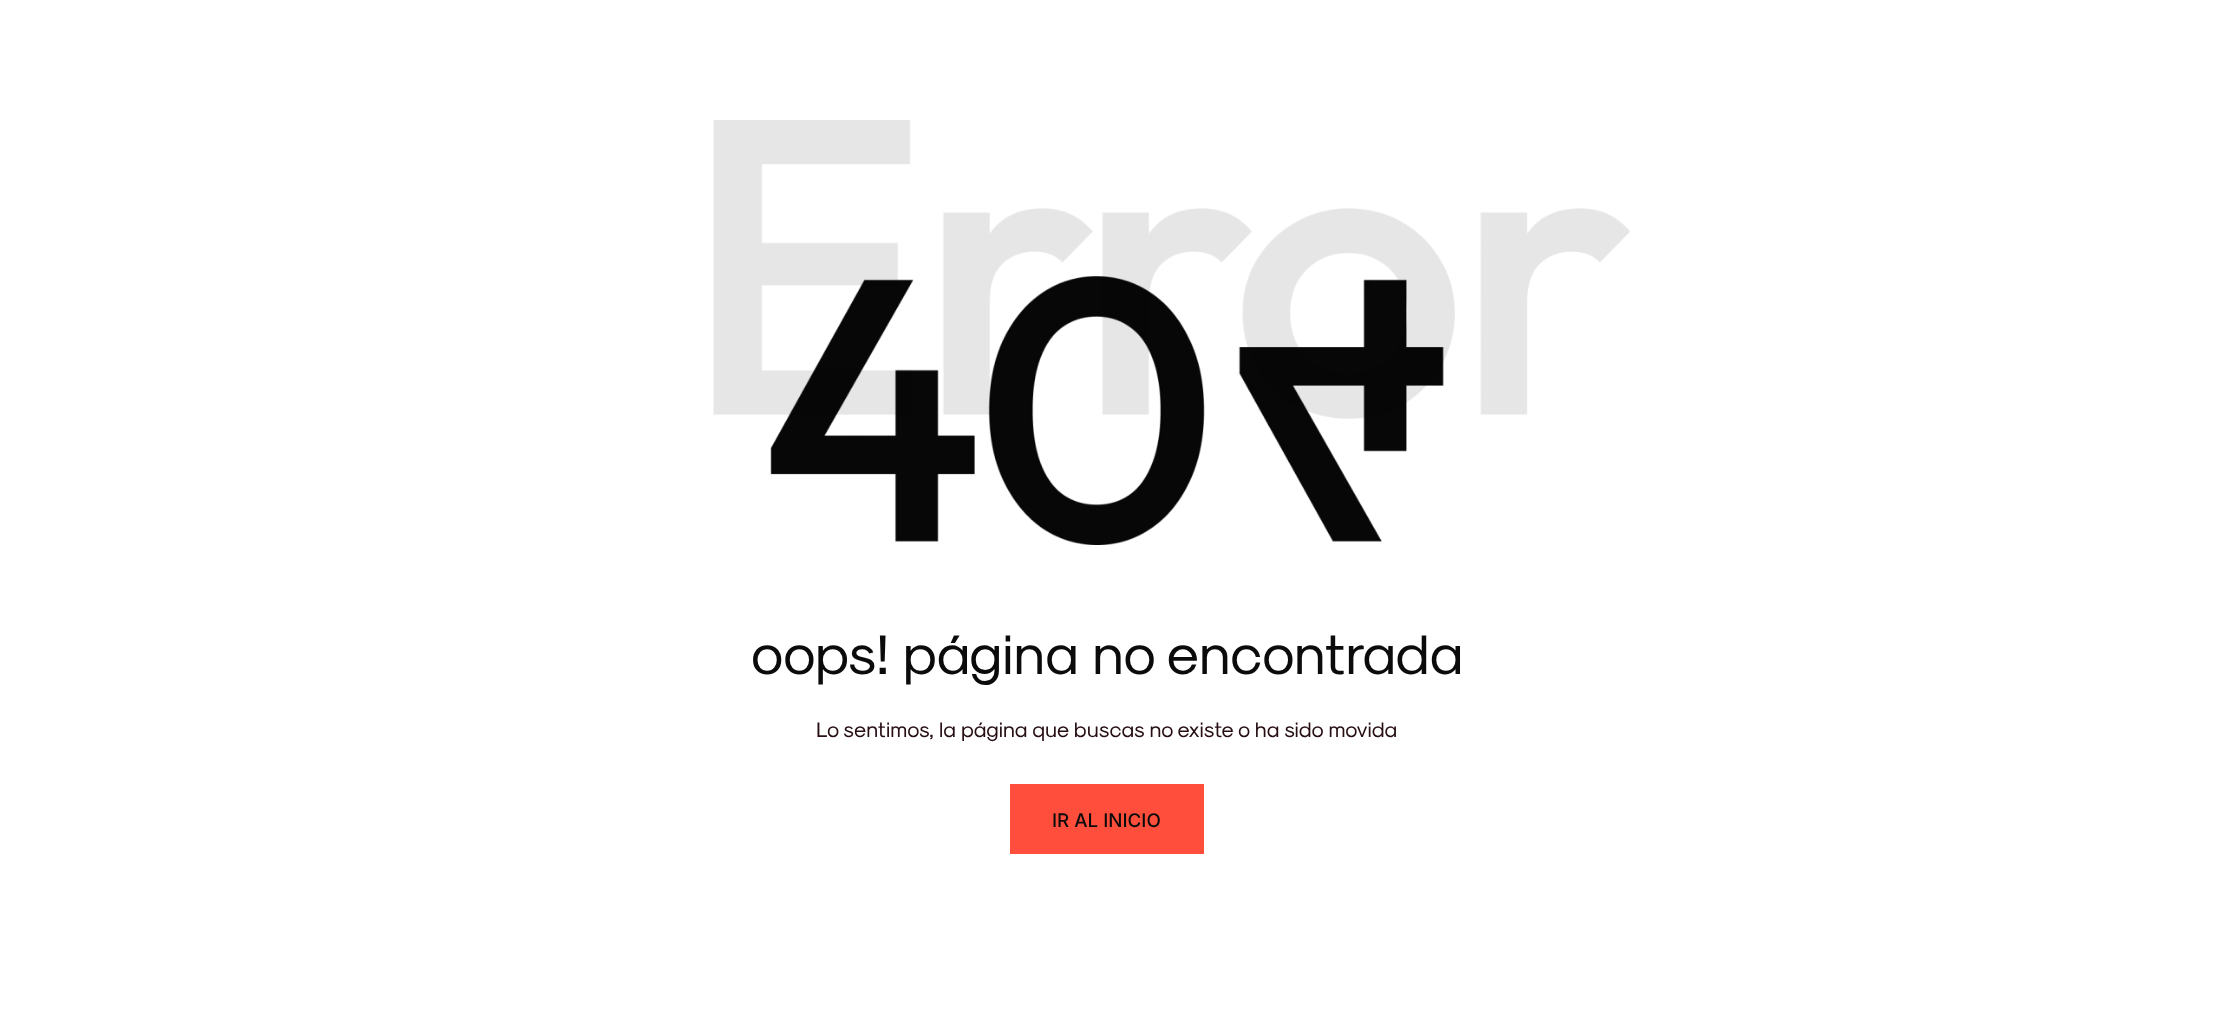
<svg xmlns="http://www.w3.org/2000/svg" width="2213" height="1029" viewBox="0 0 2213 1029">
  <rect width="100%" height="100%" fill="#fff"/>
  <image x="770" y="276" width="674" height="269" href="img/2.png"/>
  <image x="713" y="120" width="917" height="299" href="img/1.png"/>
  <path d="M1010 784h194v70H1010z" fill="#ff4f3c"/>
  <text x="751" y="674" font-family="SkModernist" font-size="56.25" fill="#0b0b0b">oops! página no encontrada</text>
  <text x="816" y="737" font-family="SkModernist" font-size="21.25" fill="#260e12">Lo sentimos, la página que buscas no existe o ha sido movida</text>
  <text x="1052" y="827" font-family="Inter" font-size="18.75" font-weight="500" fill="#0b0b0b">IR AL INICIO</text>
</svg>
